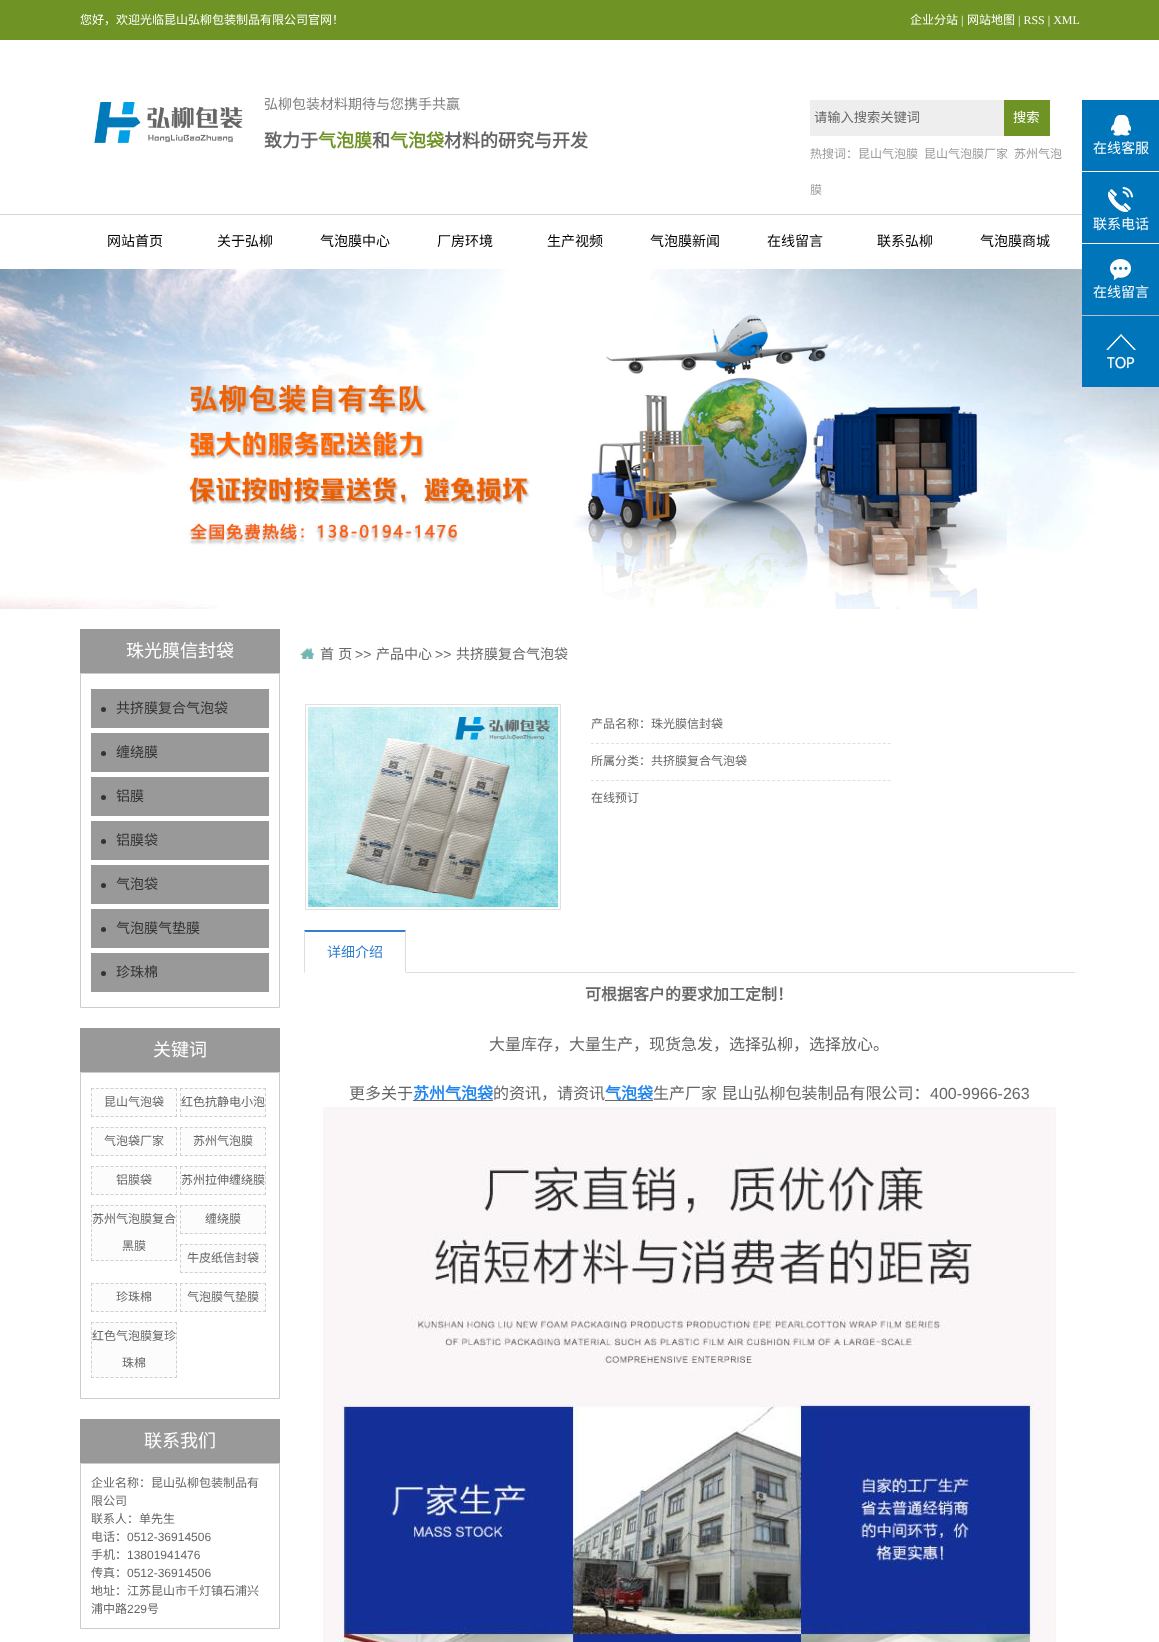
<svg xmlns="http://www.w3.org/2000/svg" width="1159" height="1642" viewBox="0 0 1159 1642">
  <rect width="100%" height="100%" fill="#fff"/>
  <path d="M0 0h1159v40H0z" fill="#6f9325"/>
  <image x="94" y="102" width="149" height="41" href="img/1.png"/>
  <path d="M810 100h194v36H810z" fill="#eee"/>
  <path d="M1004 100h46v36H1004z" fill="#6f9325"/>
  <path d="M1082 100h77v71H1082z" fill="#0075b9"/>
  <image x="1111" y="115" width="20" height="21" href="img/2.png"/>
  <path d="M1082 172h77v71H1082z" fill="#0075b9"/>
  <image x="1108" y="187" width="25" height="25" href="img/3.png"/>
  <image x="0" y="269" width="1159" height="340" href="img/6.png"/>
  <path d="M1082 244h77v71H1082z" fill="#0075b9"/>
  <image x="1110" y="259" width="21" height="21" href="img/4.png"/>
  <path d="M1082 316h77v71H1082z" fill="#0075b9"/>
  <image x="1106" y="334" width="30" height="35" href="img/5.png"/>
  <path d="M0 214h1082v1H0z" fill="#d6d6d6"/>
  <path d="M80 629h200v44H80z" fill="#999"/>
  <path d="M80.5 673.5h199v334H80.5z" fill="none" stroke="#ccc"/>
  <path d="M91 689h178v39H91z" fill="#999"/>
  <circle cx="103.5" cy="709.5" r="2.5" fill="#333"/>
  <path d="M91 733h178v39H91z" fill="#999"/>
  <circle cx="103.5" cy="753.5" r="2.5" fill="#333"/>
  <path d="M91 777h178v39H91z" fill="#999"/>
  <circle cx="103.5" cy="797.5" r="2.5" fill="#333"/>
  <path d="M91 821h178v39H91z" fill="#999"/>
  <circle cx="103.5" cy="841.5" r="2.5" fill="#333"/>
  <path d="M91 865h178v39H91z" fill="#999"/>
  <circle cx="103.5" cy="885.5" r="2.5" fill="#333"/>
  <path d="M91 909h178v39H91z" fill="#999"/>
  <circle cx="103.5" cy="929.5" r="2.5" fill="#333"/>
  <path d="M91 953h178v39H91z" fill="#999"/>
  <circle cx="103.5" cy="973.5" r="2.5" fill="#333"/>
  <path d="M80 1028h200v44H80z" fill="#999"/>
  <path d="M80.5 1072.5h199v326H80.5z" fill="none" stroke="#ccc"/>
  <path d="M91 1088h86v29H91z" fill="#fcfcfc"/>
  <path d="M91 1088.5H177" fill="none" stroke="#d0d0d0" stroke-dasharray="3 1.88"/>
  <path d="M176.5 1088V1117" fill="none" stroke="#d0d0d0" stroke-dasharray="3 2.2"/>
  <path d="M91 1116.5H177" fill="none" stroke="#d0d0d0" stroke-dasharray="3 1.88"/>
  <path d="M91.5 1088V1117" fill="none" stroke="#d0d0d0" stroke-dasharray="3 2.2"/>
  <path d="M180 1088h86v29H180z" fill="#fcfcfc"/>
  <path d="M180 1088.5H266" fill="none" stroke="#d0d0d0" stroke-dasharray="3 1.88"/>
  <path d="M265.5 1088V1117" fill="none" stroke="#d0d0d0" stroke-dasharray="3 2.2"/>
  <path d="M180 1116.5H266" fill="none" stroke="#d0d0d0" stroke-dasharray="3 1.88"/>
  <path d="M180.5 1088V1117" fill="none" stroke="#d0d0d0" stroke-dasharray="3 2.2"/>
  <path d="M91 1127h86v29H91z" fill="#fcfcfc"/>
  <path d="M91 1127.5H177" fill="none" stroke="#d0d0d0" stroke-dasharray="3 1.88"/>
  <path d="M176.5 1127V1156" fill="none" stroke="#d0d0d0" stroke-dasharray="3 2.2"/>
  <path d="M91 1155.5H177" fill="none" stroke="#d0d0d0" stroke-dasharray="3 1.88"/>
  <path d="M91.5 1127V1156" fill="none" stroke="#d0d0d0" stroke-dasharray="3 2.2"/>
  <path d="M180 1127h86v29H180z" fill="#fcfcfc"/>
  <path d="M180 1127.5H266" fill="none" stroke="#d0d0d0" stroke-dasharray="3 1.88"/>
  <path d="M265.5 1127V1156" fill="none" stroke="#d0d0d0" stroke-dasharray="3 2.2"/>
  <path d="M180 1155.5H266" fill="none" stroke="#d0d0d0" stroke-dasharray="3 1.88"/>
  <path d="M180.5 1127V1156" fill="none" stroke="#d0d0d0" stroke-dasharray="3 2.2"/>
  <path d="M91 1166h86v29H91z" fill="#fcfcfc"/>
  <path d="M91 1166.5H177" fill="none" stroke="#d0d0d0" stroke-dasharray="3 1.88"/>
  <path d="M176.5 1166V1195" fill="none" stroke="#d0d0d0" stroke-dasharray="3 2.2"/>
  <path d="M91 1194.5H177" fill="none" stroke="#d0d0d0" stroke-dasharray="3 1.88"/>
  <path d="M91.5 1166V1195" fill="none" stroke="#d0d0d0" stroke-dasharray="3 2.2"/>
  <path d="M180 1166h86v29H180z" fill="#fcfcfc"/>
  <path d="M180 1166.5H266" fill="none" stroke="#d0d0d0" stroke-dasharray="3 1.88"/>
  <path d="M265.5 1166V1195" fill="none" stroke="#d0d0d0" stroke-dasharray="3 2.2"/>
  <path d="M180 1194.5H266" fill="none" stroke="#d0d0d0" stroke-dasharray="3 1.88"/>
  <path d="M180.5 1166V1195" fill="none" stroke="#d0d0d0" stroke-dasharray="3 2.2"/>
  <path d="M91 1205h86v56H91z" fill="#fcfcfc"/>
  <path d="M91 1205.5H177" fill="none" stroke="#d0d0d0" stroke-dasharray="3 1.88"/>
  <path d="M176.5 1205V1261" fill="none" stroke="#d0d0d0" stroke-dasharray="3 1.82"/>
  <path d="M91 1260.5H177" fill="none" stroke="#d0d0d0" stroke-dasharray="3 1.88"/>
  <path d="M91.5 1205V1261" fill="none" stroke="#d0d0d0" stroke-dasharray="3 1.82"/>
  <path d="M180 1205h86v29H180z" fill="#fcfcfc"/>
  <path d="M180 1205.5H266" fill="none" stroke="#d0d0d0" stroke-dasharray="3 1.88"/>
  <path d="M265.5 1205V1234" fill="none" stroke="#d0d0d0" stroke-dasharray="3 2.2"/>
  <path d="M180 1233.5H266" fill="none" stroke="#d0d0d0" stroke-dasharray="3 1.88"/>
  <path d="M180.5 1205V1234" fill="none" stroke="#d0d0d0" stroke-dasharray="3 2.2"/>
  <path d="M180 1244h86v29H180z" fill="#fcfcfc"/>
  <path d="M180 1244.5H266" fill="none" stroke="#d0d0d0" stroke-dasharray="3 1.88"/>
  <path d="M265.5 1244V1273" fill="none" stroke="#d0d0d0" stroke-dasharray="3 2.2"/>
  <path d="M180 1272.5H266" fill="none" stroke="#d0d0d0" stroke-dasharray="3 1.88"/>
  <path d="M180.5 1244V1273" fill="none" stroke="#d0d0d0" stroke-dasharray="3 2.2"/>
  <path d="M91 1283h86v29H91z" fill="#fcfcfc"/>
  <path d="M91 1283.5H177" fill="none" stroke="#d0d0d0" stroke-dasharray="3 1.88"/>
  <path d="M176.5 1283V1312" fill="none" stroke="#d0d0d0" stroke-dasharray="3 2.2"/>
  <path d="M91 1311.5H177" fill="none" stroke="#d0d0d0" stroke-dasharray="3 1.88"/>
  <path d="M91.5 1283V1312" fill="none" stroke="#d0d0d0" stroke-dasharray="3 2.2"/>
  <path d="M180 1283h86v29H180z" fill="#fcfcfc"/>
  <path d="M180 1283.5H266" fill="none" stroke="#d0d0d0" stroke-dasharray="3 1.88"/>
  <path d="M265.5 1283V1312" fill="none" stroke="#d0d0d0" stroke-dasharray="3 2.2"/>
  <path d="M180 1311.5H266" fill="none" stroke="#d0d0d0" stroke-dasharray="3 1.88"/>
  <path d="M180.5 1283V1312" fill="none" stroke="#d0d0d0" stroke-dasharray="3 2.2"/>
  <path d="M91 1322h86v56H91z" fill="#fcfcfc"/>
  <path d="M91 1322.5H177" fill="none" stroke="#d0d0d0" stroke-dasharray="3 1.88"/>
  <path d="M176.5 1322V1378" fill="none" stroke="#d0d0d0" stroke-dasharray="3 1.82"/>
  <path d="M91 1377.5H177" fill="none" stroke="#d0d0d0" stroke-dasharray="3 1.88"/>
  <path d="M91.5 1322V1378" fill="none" stroke="#d0d0d0" stroke-dasharray="3 1.82"/>
  <path d="M80 1419h200v44H80z" fill="#999"/>
  <path d="M80.5 1463.5h199v165H80.5z" fill="none" stroke="#ccc"/>
  <image x="300" y="648" width="14" height="11" href="img/7.png"/>
  <path d="M305.5 704.5h255v205H305.5z" fill="none" stroke="#e0e1dc"/>
  <image x="308" y="707" width="250" height="200" href="img/8.png"/>
  <path d="M591 743.5H891" fill="none" stroke="#e0e1dc" stroke-dasharray="3 2.03"/>
  <path d="M591 780.5H891" fill="none" stroke="#e0e1dc" stroke-dasharray="3 2.03"/>
  <path d="M406 972h669v1H406z" fill="#ddd"/>
  <path d="M304 930H406L405 932H305Z" fill="#3480ce"/>
  <path d="M406 930V973L405 972V932Z" fill="#ddd"/>
  <path d="M405 972h1v1H405z" fill="#fff"/>
  <path d="M304 973V930L305 932V972Z" fill="#ddd"/>
  <path d="M413 1100h80v1H413z" fill="#666"/>
  <path d="M605 1100h48v1H605z" fill="#666"/>
  <image x="323" y="1107" width="733" height="535" href="img/9.png"/>
  <g font-family="Noto Sans CJK SC" font-size="12" fill="#fff">
    <text x="80" y="24">您好，欢迎光临昆山弘柳包装制品有限公司官网！</text>
    <text x="910" y="24">企业分站</text>
  </g>
  <text x="961" y="24" font-family="Liberation Serif" font-size="12" fill="#fff">|</text>
  <text x="967" y="24" font-family="Noto Sans CJK SC" font-size="12" fill="#fff">网站地图</text>
  <text x="1018" y="24" font-family="Liberation Serif" font-size="12" fill="#fff">| RSS | XML</text>
  <text x="264" y="109" font-family="Noto Sans CJK SC" font-size="14" fill="#7f7f7f">弘柳包装材料期待与您携手共赢</text>
  <text x="264" y="147" font-family="Noto Sans CJK SC" font-size="18" font-weight="bold" fill="#666">致力于</text>
  <text x="318" y="147" font-family="Noto Sans CJK SC" font-size="18" font-weight="bold" fill="#6f9325">气泡膜</text>
  <text x="372" y="147" font-family="Noto Sans CJK SC" font-size="18" font-weight="bold" fill="#666">和</text>
  <text x="390" y="147" font-family="Noto Sans CJK SC" font-size="18" font-weight="bold" fill="#6f9325">气泡袋</text>
  <text x="444" y="147" font-family="Noto Sans CJK SC" font-size="18" font-weight="bold" fill="#666">材料的研究与开发</text>
  <text x="814" y="122" font-family="Noto Sans CJK SC" font-size="13.25" fill="#666">请输入搜索关键词</text>
  <text x="1013" y="122" font-family="Noto Sans CJK SC" font-size="13.25" fill="#fff">搜索</text>
  <g font-family="Noto Sans CJK SC" font-size="12" fill="#9b9b9b">
    <text x="810" y="158">热搜词：昆山气泡膜</text>
    <text x="924" y="158">昆山气泡膜厂家</text>
    <text x="1014" y="158">苏州气泡</text>
    <text x="810" y="194">膜</text>
  </g>
  <g font-family="Noto Sans CJK SC" font-size="14" fill="#fff">
    <text x="1093" y="153">在线客服</text>
    <text x="1093" y="229">联系电话</text>
    <text x="1093" y="297">在线留言</text>
  </g>
  <g font-family="Noto Sans CJK SC" font-size="14" fill="#000">
    <text x="107" y="246">网站首页</text>
    <text x="217" y="246">关于弘柳</text>
    <text x="320" y="246">气泡膜中心</text>
    <text x="437" y="246">厂房环境</text>
    <text x="547" y="246">生产视频</text>
    <text x="650" y="246">气泡膜新闻</text>
    <text x="767" y="246">在线留言</text>
    <text x="877" y="246">联系弘柳</text>
    <text x="980" y="246">气泡膜商城</text>
  </g>
  <text x="126" y="657" font-family="Noto Sans CJK SC" font-size="18" fill="#fff">珠光膜信封袋</text>
  <g font-family="Noto Sans CJK SC" font-size="14" fill="#333">
    <text x="116" y="713">共挤膜复合气泡袋</text>
    <text x="116" y="757">缠绕膜</text>
    <text x="116" y="801">铝膜</text>
    <text x="116" y="845">铝膜袋</text>
    <text x="116" y="889">气泡袋</text>
    <text x="116" y="933">气泡膜气垫膜</text>
    <text x="116" y="977">珍珠棉</text>
  </g>
  <text x="153" y="1056" font-family="Noto Sans CJK SC" font-size="18" fill="#fff">关键词</text>
  <g font-family="Noto Sans CJK SC" font-size="12" fill="#666">
    <text x="104" y="1106">昆山气泡袋</text>
    <text x="181" y="1106">红色抗静电小泡</text>
    <text x="104" y="1145">气泡袋厂家</text>
    <text x="193" y="1145">苏州气泡膜</text>
    <text x="116" y="1184">铝膜袋</text>
    <text x="181" y="1184">苏州拉伸缠绕膜</text>
    <text x="92" y="1223">苏州气泡膜复合</text>
    <text x="122" y="1250">黑膜</text>
    <text x="205" y="1223">缠绕膜</text>
    <text x="187" y="1262">牛皮纸信封袋</text>
    <text x="116" y="1301">珍珠棉</text>
    <text x="187" y="1301">气泡膜气垫膜</text>
    <text x="92" y="1340">红色气泡膜复珍</text>
    <text x="122" y="1367">珠棉</text>
  </g>
  <text x="144" y="1447" font-family="Noto Sans CJK SC" font-size="18" fill="#fff">联系我们</text>
  <g font-family="Noto Sans CJK SC" font-size="12" fill="#666">
    <text x="91" y="1487">企业名称：昆山弘柳包装制品有</text>
    <text x="91" y="1505">限公司</text>
    <text x="91" y="1523">联系人：单先生</text>
    <text x="91" y="1541">电话：</text>
  </g>
  <text x="127" y="1541" font-family="Liberation Sans" font-size="12" fill="#666">0512-36914506</text>
  <text x="91" y="1559" font-family="Noto Sans CJK SC" font-size="12" fill="#666">手机：</text>
  <text x="127" y="1559" font-family="Liberation Sans" font-size="12" fill="#666">13801941476</text>
  <text x="91" y="1577" font-family="Noto Sans CJK SC" font-size="12" fill="#666">传真：</text>
  <text x="127" y="1577" font-family="Liberation Sans" font-size="12" fill="#666">0512-36914506</text>
  <g font-family="Noto Sans CJK SC" font-size="12" fill="#666">
    <text x="91" y="1595">地址：江苏昆山市千灯镇石浦兴</text>
    <text x="91" y="1613">浦中路</text>
  </g>
  <text x="127" y="1613" font-family="Liberation Sans" font-size="12" fill="#666">229</text>
  <text x="147" y="1613" font-family="Noto Sans CJK SC" font-size="12" fill="#666">号</text>
  <text x="320" y="659" word-spacing="1" font-family="Noto Sans CJK SC" font-size="14" fill="#666">首 页</text>
  <text x="355" y="659" font-family="Liberation Sans" font-size="14" fill="#666">&gt;&gt;</text>
  <text x="376" y="659" font-family="Noto Sans CJK SC" font-size="14" fill="#666">产品中心</text>
  <text x="435" y="659" font-family="Liberation Sans" font-size="14" fill="#666">&gt;&gt;</text>
  <text x="456" y="659" font-family="Noto Sans CJK SC" font-size="14" fill="#666">共挤膜复合气泡袋</text>
  <g font-family="Noto Sans CJK SC" font-size="12" fill="#666">
    <text x="591" y="728">产品名称：珠光膜信封袋</text>
    <text x="591" y="765">所属分类：共挤膜复合气泡袋</text>
    <text x="591" y="802">在线预订</text>
  </g>
  <text x="327" y="957" font-family="Noto Sans CJK SC" font-size="14" fill="#3480ce">详细介绍</text>
  <text x="585" y="1000" font-family="Noto Sans CJK SC" font-size="16" font-weight="bold" fill="#666">可根据客户的要求加工定制！</text>
  <g font-family="Noto Sans CJK SC" font-size="16" fill="#666">
    <text x="489" y="1050">大量库存，大量生产，现货急发，选择弘柳，选择放心。</text>
    <text x="349" y="1099">更多关于</text>
  </g>
  <text x="413" y="1099" font-family="Noto Sans CJK SC" font-size="16" font-weight="bold" fill="#2086ee">苏州气泡袋</text>
  <text x="493" y="1099" font-family="Noto Sans CJK SC" font-size="16" fill="#666">的资讯，请资讯</text>
  <text x="605" y="1099" font-family="Noto Sans CJK SC" font-size="16" font-weight="bold" fill="#2086ee">气泡袋</text>
  <text x="653" y="1099" word-spacing="1" font-family="Noto Sans CJK SC" font-size="16" fill="#666">生产厂家 昆山弘柳包装制品有限公司：</text>
  <text x="930" y="1099" font-family="Liberation Sans" font-size="16" fill="#666">400-9966-263</text>
</svg>
